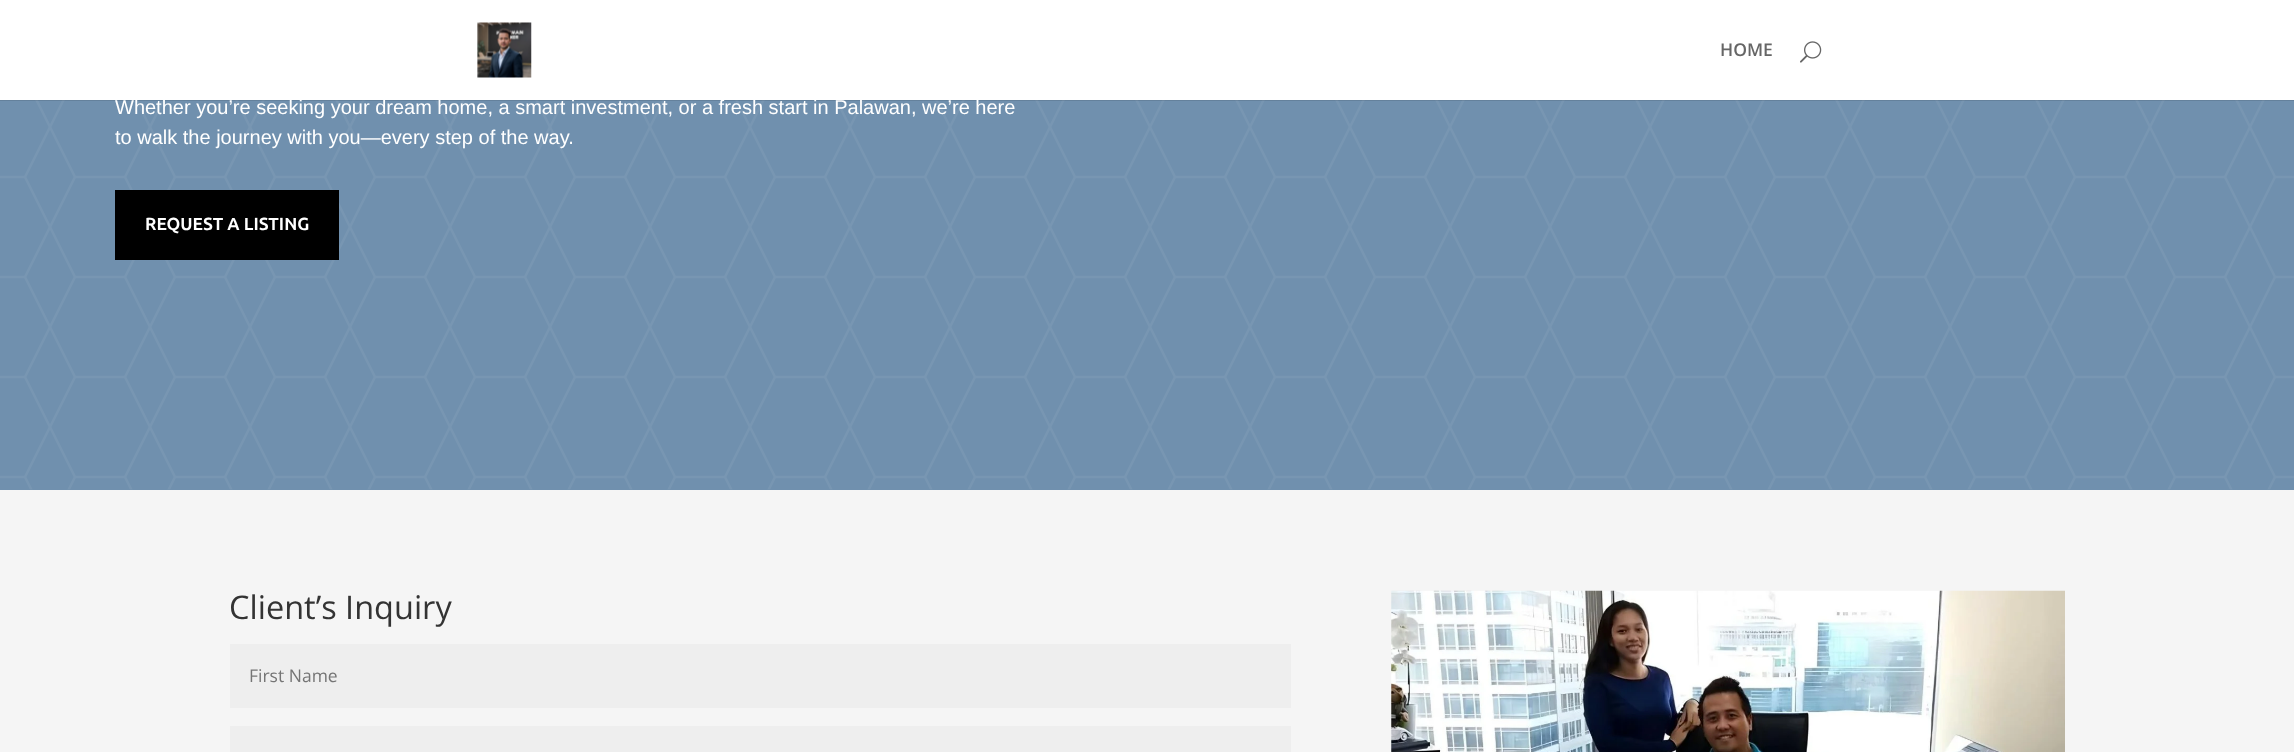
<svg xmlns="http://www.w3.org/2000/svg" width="2294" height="752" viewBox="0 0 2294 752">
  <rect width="100%" height="100%" fill="#7090ae"/>
  <image x="0" y="100" width="2294" height="390" href="img/3.png"/>
  <path d="M0 100h2294v1H0z" fill="#0000001a"/>
  <path d="M0 0h2294v100H0z" fill="#fff"/>
  <image x="477" y="22" width="55" height="56" href="img/1.png"/>
  <image x="1800" y="41" width="22" height="22" href="img/2.png"/>
  <path d="M115 190h224v70H115z" fill="#000"/>
  <path d="M0 490h2294v262H0z" fill="#f5f5f5"/>
  <path d="M230 644h1061v64H230z" fill="#eee"/>
  <path d="M230 726h1061v26H230z" fill="#eee"/>
  <image x="1391" y="590" width="674" height="162" href="img/4.png"/>
  <text x="1720" y="56" font-family="Open Sans" font-size="17.5" font-weight="600" fill="#666">HOME</text>
  <g font-family="Liberation Sans" font-size="20" fill="#fff">
    <text x="115" y="114">Whether you’re seeking your dream home, a smart investment, or a fresh start in Palawan, we’re here</text>
    <text x="115" y="144">to walk the journey with you—every step of the way.</text>
  </g>
  <text x="145" y="230" font-family="Ubuntu" font-size="17.5" font-weight="bold" fill="#fff">REQUEST A LISTING</text>
  <text x="229" y="619" font-family="Open Sans" font-size="32.5" fill="#333">Client’s Inquiry</text>
  <text x="249" y="682" font-family="Open Sans" font-size="17.5" fill="#757575">First Name</text>
</svg>
